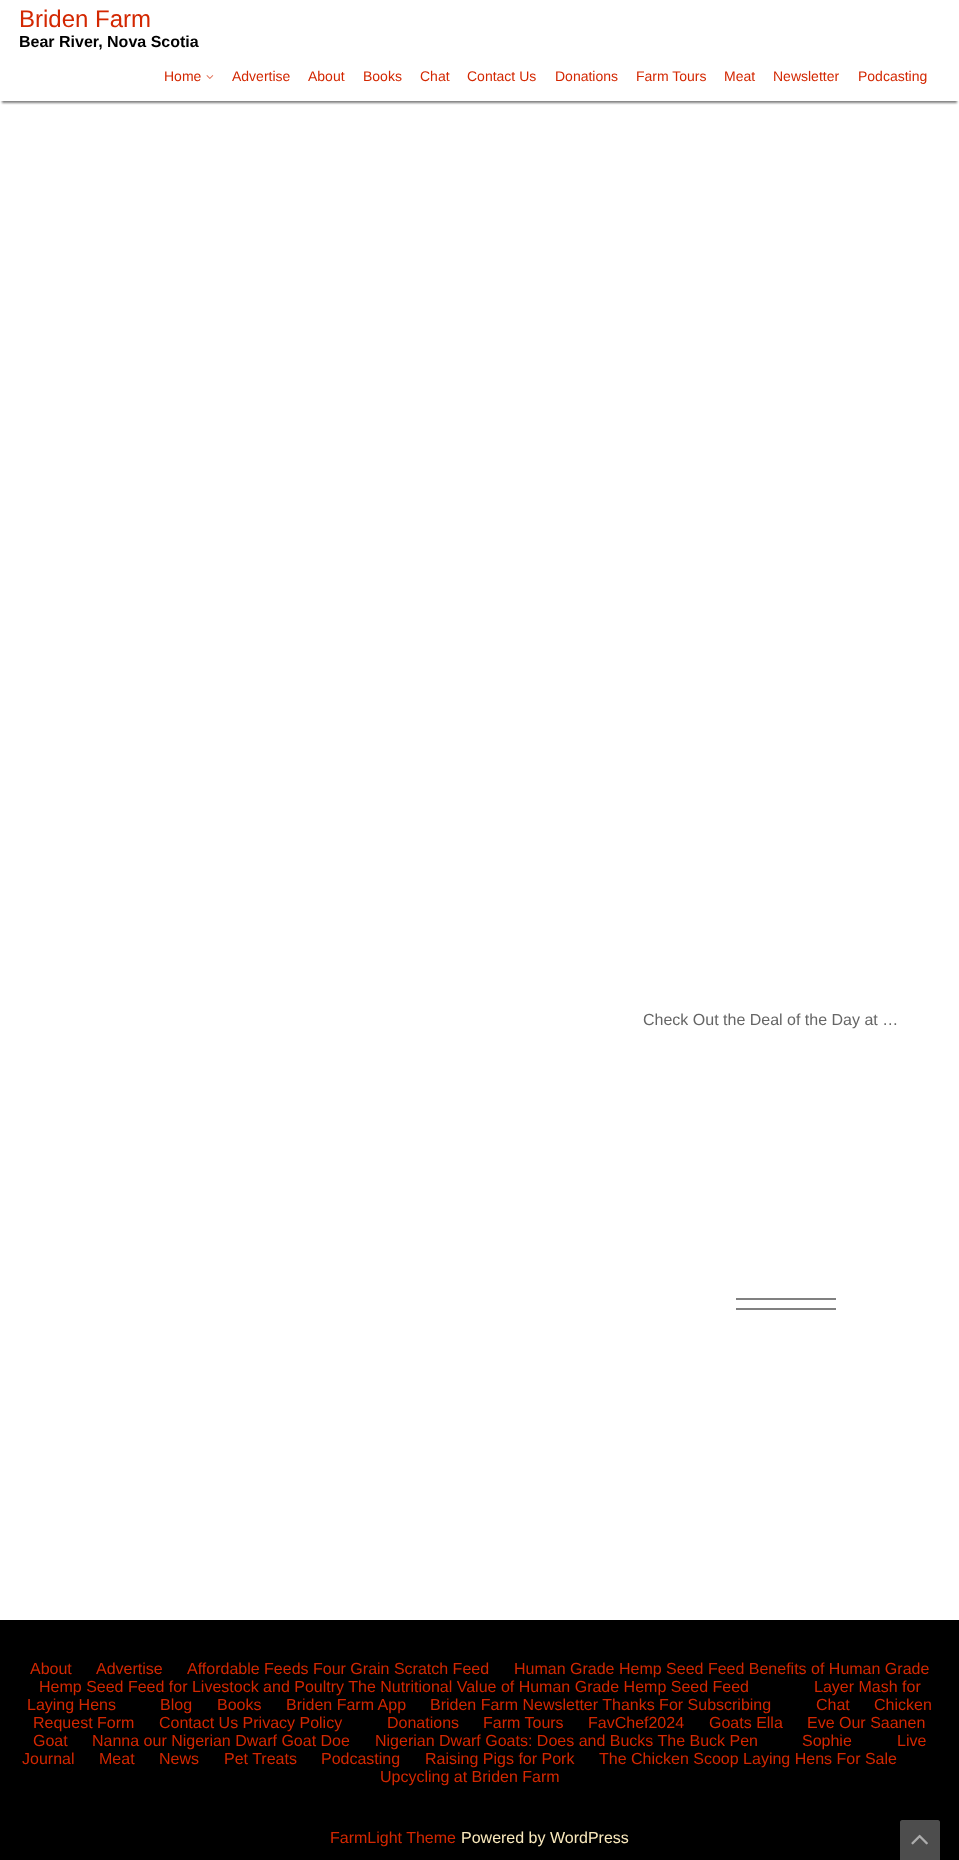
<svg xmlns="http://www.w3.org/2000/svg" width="959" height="1860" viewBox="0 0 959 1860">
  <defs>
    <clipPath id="clip1"><path d="M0 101h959v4H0z"/></clipPath>
  </defs>
  <rect width="100%" height="100%" fill="#fff"/>
  <g clip-path="url(#clip1)">
    <path d="M2 6h955v97H2z" fill="#808080" filter="blur(1px)"/>
  </g>
  <image x="206" y="75" width="8" height="4" href="img/1.png"/>
  <path d="M736 1298h100v2H736z" fill="#808080"/>
  <path d="M736 1308h100v2H736z" fill="#808080"/>
  <path d="M0 1620h959v240H0z" fill="#000"/>
  <path d="M902 1820H938C939 1820 940 1821 940 1822V1860H900V1822C900 1821 901 1820 902 1820Z" fill="#4d4d4d"/>
  <image x="911" y="1834" width="17" height="11" href="img/2.png"/>
  <text x="19" y="27" font-family="Liberation Sans" font-size="24" fill="#d32701">Briden Farm</text>
  <text x="19" y="47" font-family="Liberation Sans" font-size="16" font-weight="bold" fill="#000">Bear River, Nova Scotia</text>
  <g font-family="Liberation Sans" font-size="14" fill="#d32701">
    <text x="164" y="81">Home</text>
    <text x="232" y="81">Advertise</text>
    <text x="308" y="81">About</text>
    <text x="363" y="81">Books</text>
    <text x="420" y="81">Chat</text>
    <text x="467" y="81">Contact Us</text>
    <text x="555" y="81">Donations</text>
    <text x="636" y="81">Farm Tours</text>
    <text x="724" y="81">Meat</text>
    <text x="773" y="81">Newsletter</text>
    <text x="858" y="81">Podcasting</text>
  </g>
  <text x="643" y="1025" font-family="Liberation Sans" font-size="16" fill="#666">Check Out the Deal of the Day at …</text>
  <g font-family="Liberation Sans" font-size="16" fill="#d32701">
    <text x="30" y="1674">About</text>
    <text x="96" y="1674">Advertise</text>
    <text x="187" y="1674">Affordable Feeds Four Grain Scratch Feed</text>
    <text x="514" y="1674">Human Grade Hemp Seed Feed Benefits of Human Grade</text>
    <text x="39" y="1692">Hemp Seed Feed for Livestock and Poultry The Nutritional Value of Human Grade Hemp Seed Feed</text>
    <text x="814" y="1692">Layer Mash for</text>
    <text x="27" y="1710">Laying Hens</text>
    <text x="160" y="1710">Blog</text>
    <text x="217" y="1710">Books</text>
    <text x="286" y="1710">Briden Farm App</text>
    <text x="430" y="1710">Briden Farm Newsletter Thanks For Subscribing</text>
    <text x="816" y="1710">Chat</text>
    <text x="874" y="1710">Chicken</text>
    <text x="33" y="1728">Request Form</text>
    <text x="159" y="1728">Contact Us Privacy Policy</text>
    <text x="387" y="1728">Donations</text>
    <text x="483" y="1728">Farm Tours</text>
    <text x="588" y="1728">FavChef2024</text>
    <text x="709" y="1728">Goats Ella</text>
    <text x="807" y="1728">Eve Our Saanen</text>
    <text x="33" y="1746">Goat</text>
    <text x="92" y="1746">Nanna our Nigerian Dwarf Goat Doe</text>
    <text x="375" y="1746">Nigerian Dwarf Goats: Does and Bucks The Buck Pen</text>
    <text x="802" y="1746">Sophie</text>
    <text x="897" y="1746">Live</text>
    <text x="22" y="1764">Journal</text>
    <text x="99" y="1764">Meat</text>
    <text x="159" y="1764">News</text>
    <text x="224" y="1764">Pet Treats</text>
    <text x="321" y="1764">Podcasting</text>
    <text x="425" y="1764">Raising Pigs for Pork</text>
    <text x="599" y="1764">The Chicken Scoop Laying Hens For Sale</text>
    <text x="380" y="1782">Upcycling at Briden Farm</text>
    <text x="330" y="1843">FarmLight Theme</text>
  </g>
  <text x="461" y="1843" font-family="Liberation Sans" font-size="16" fill="#fae9bc">Powered by WordPress</text>
</svg>
